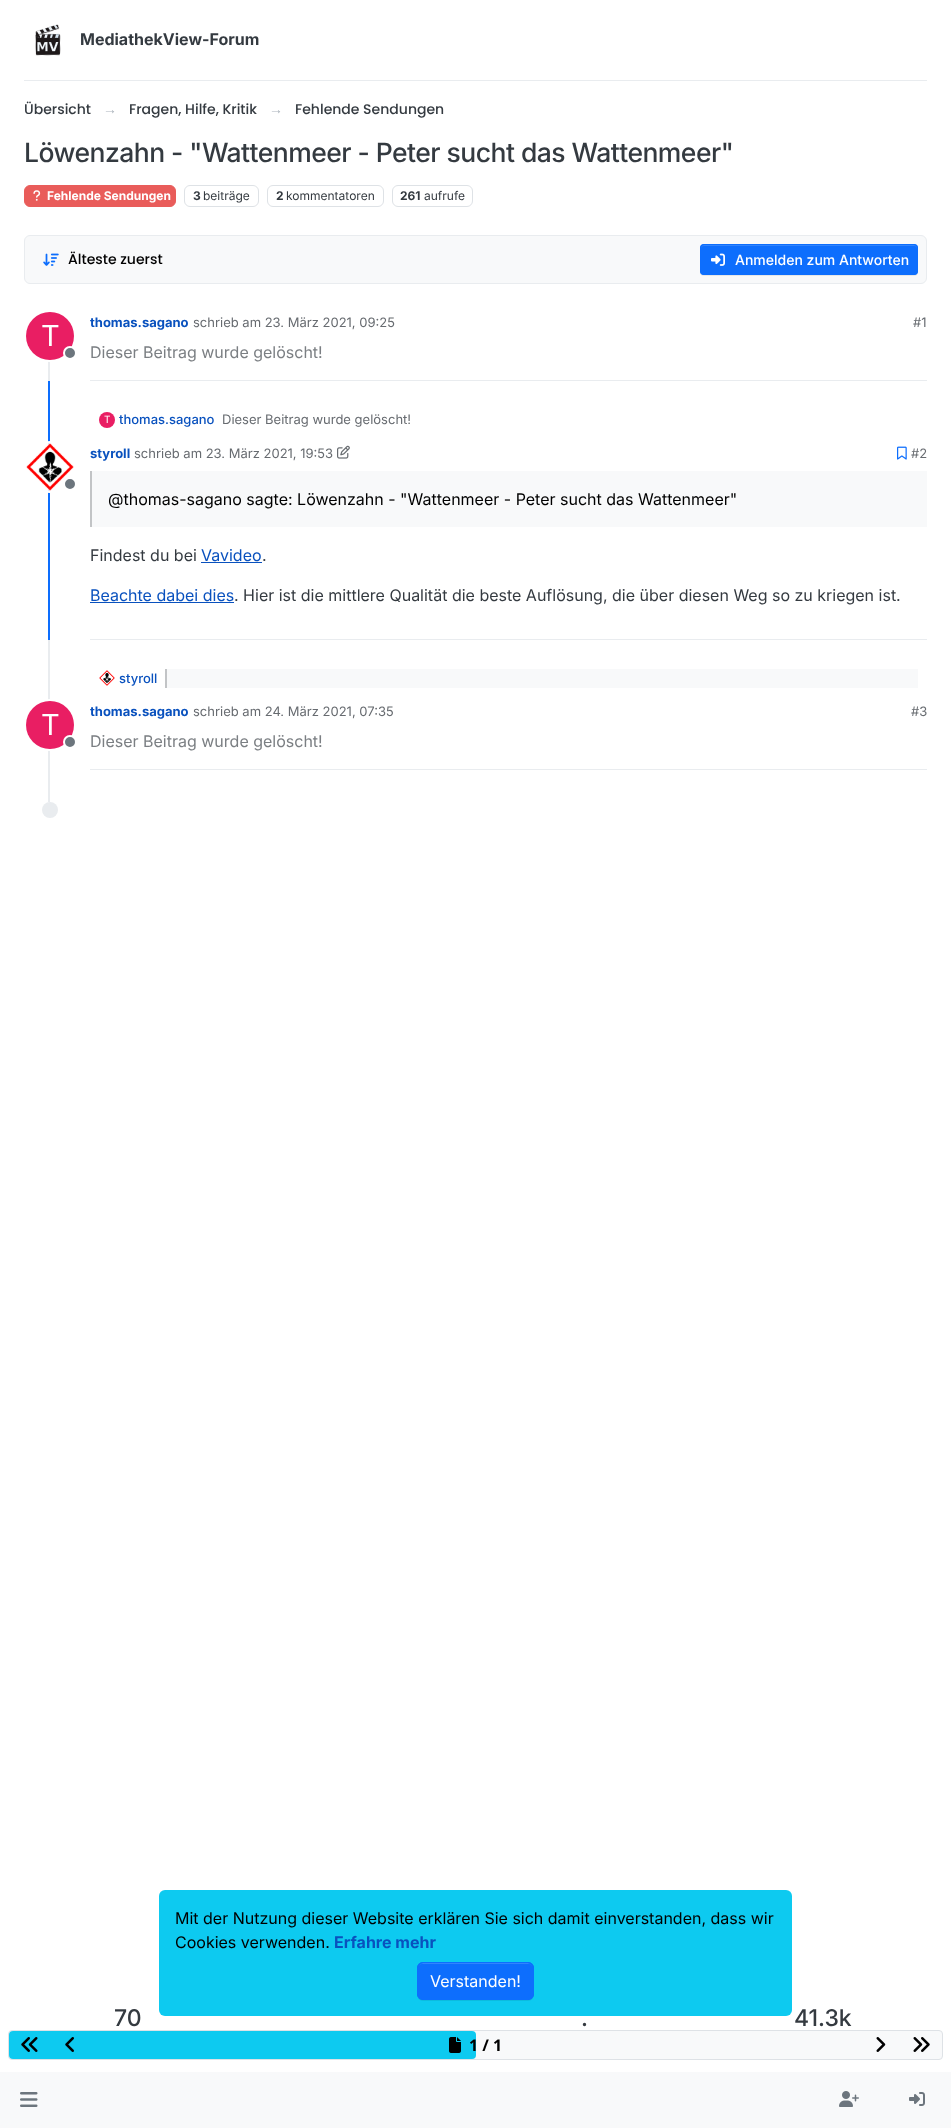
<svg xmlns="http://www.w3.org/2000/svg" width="951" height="2128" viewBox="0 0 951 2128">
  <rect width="100%" height="100%" fill="#fff"/>
  <path d="M24 80h903v1H24z" fill="#e9ecef"/>
  <image x="35" y="24" width="26" height="32" href="img/1.png"/>
  <rect x="24.5" y="185.5" width="151" height="21" rx="5.5" fill="#e95c5a" stroke="#e95c5a"/>
  <image x="33" y="190" width="8" height="11" href="img/2.png"/>
  <rect x="184.5" y="185.5" width="74" height="21" rx="5.5" fill="none" stroke="#dee2e6"/>
  <rect x="267.5" y="185.5" width="116" height="21" rx="5.5" fill="none" stroke="#dee2e6"/>
  <rect x="392.5" y="185.5" width="80" height="21" rx="5.5" fill="none" stroke="#dee2e6"/>
  <rect x="24.5" y="235.5" width="902" height="48" rx="5.5" fill="#f8f9fa" stroke="#e9ecef"/>
  <image x="43" y="253" width="16" height="13" href="img/3.png"/>
  <rect x="700" y="245" width="218" height="31" rx="4" fill="#00000012" filter="blur(0.5px)"/>
  <rect x="700" y="244" width="218" height="31" rx="4" fill="#0d6efd"/>
  <path d="M704 246H914C916 246 917 247 917 249V248C917 246 916 245 914 245H704C702 245 701 246 701 248V249C701 247 702 246 704 246Z" fill="#3184fd"/>
  <rect x="700.5" y="244.5" width="217" height="30" rx="3.5" fill="none" stroke="#0d6efd"/>
  <image x="711" y="253" width="14" height="13" href="img/4.png"/>
  <path d="M48 312h2v69H48z" fill="#e9ecef"/>
  <circle cx="50" cy="336" r="25" fill="none" stroke="#fff" stroke-width="2"/>
  <circle cx="50" cy="336" r="24" fill="#e91e63"/>
  <circle cx="70" cy="353" r="6" fill="#6c757d" stroke="#fff" stroke-width="2"/>
  <path d="M90 380h837v1H90z" fill="#e9ecef"/>
  <path d="M48 381h2v259H48z" fill="#0d6efd"/>
  <circle cx="107" cy="420" r="8" fill="#e91e63"/>
  <circle cx="50" cy="467" r="25" fill="none" stroke="#fff" stroke-width="2"/>
  <image x="26" y="443" width="48" height="48" href="img/5.png"/>
  <circle cx="70" cy="484" r="6" fill="#6c757d" stroke="#fff" stroke-width="2"/>
  <image x="337" y="445" width="13" height="14" href="img/6.png"/>
  <image x="897" y="446" width="10" height="14" href="img/7.png"/>
  <path d="M92 471h835v56H92z" fill="#f8f9fa"/>
  <path d="M90 471h2v56H90z" fill="#c2c4c6"/>
  <path d="M201 562h61v1H201z" fill="#0951be"/>
  <path d="M90 602h144v1H90z" fill="#0951be"/>
  <path d="M90 639h837v1H90z" fill="#e9ecef"/>
  <path d="M48 640h2v162H48z" fill="#e9ecef"/>
  <image x="99" y="670" width="16" height="16" href="img/8.png"/>
  <path d="M167 669h751v19H167z" fill="#f8f9fa"/>
  <path d="M165 669h2v19H165z" fill="#c2c4c6"/>
  <circle cx="50" cy="725" r="25" fill="none" stroke="#fff" stroke-width="2"/>
  <circle cx="50" cy="725" r="24" fill="#e91e63"/>
  <circle cx="70" cy="742" r="6" fill="#6c757d" stroke="#fff" stroke-width="2"/>
  <path d="M90 769h837v1H90z" fill="#e9ecef"/>
  <circle cx="50" cy="810" r="8" fill="#e9ecef"/>
  <rect x="159" y="1890" width="633" height="126" rx="6" fill="#0dcaf0"/>
  <rect x="417" y="1963" width="117" height="38" rx="6" fill="#00000012" filter="blur(0.5px)"/>
  <rect x="417" y="1962" width="117" height="38" rx="6" fill="#0d6efd"/>
  <path d="M423 1964H528C531 1964 533 1966 533 1969C533 1959 515 1963 510 1963H440C436 1963 418 1959 418 1969C418 1966 420 1964 423 1964Z" fill="#3184fd"/>
  <rect x="417.5" y="1962.5" width="116" height="37" rx="5.5" fill="none" stroke="#0d6efd"/>
  <rect x="8.5" y="2030.5" width="934" height="29" rx="3.5" fill="#f8f9fa" stroke="#dee2e6"/>
  <rect x="9" y="2031" width="467" height="28" rx="4" fill="#0dcaf0"/>
  <image x="21" y="2037" width="17" height="15" href="img/9.png"/>
  <image x="65" y="2037" width="9" height="15" href="img/10.png"/>
  <image x="449" y="2037" width="12" height="16" href="img/11.png"/>
  <image x="876" y="2037" width="10" height="15" href="img/12.png"/>
  <image x="913" y="2037" width="17" height="15" href="img/13.png"/>
  <path d="M0 2072h951v56H0z" fill="#f8f9fa"/>
  <image x="20" y="2092" width="18" height="15" href="img/14.png"/>
  <image x="839" y="2091" width="20" height="16" href="img/15.png"/>
  <image x="909" y="2092" width="16" height="14" href="img/16.png"/>
  <text x="80" y="45" font-family="Inter" font-size="16" font-weight="bold" fill="#343a40">MediathekView-Forum</text>
  <text x="24" y="114" font-family="Poppins" font-size="14" font-weight="500" fill="#343a40">Übersicht</text>
  <text x="103" y="114" font-family="Liberation Sans" font-size="14" fill="#adb5bd">→</text>
  <text x="129" y="114" font-family="Poppins" font-size="14" font-weight="500" fill="#343a40">Fragen, Hilfe, Kritik</text>
  <text x="269" y="114" font-family="Liberation Sans" font-size="14" fill="#adb5bd">→</text>
  <text x="295" y="114" font-family="Poppins" font-size="14" font-weight="500" fill="#343a40">Fehlende Sendungen</text>
  <text x="24" y="162" font-family="Inter" font-size="26.5" font-weight="500" letter-spacing="-0.53" fill="#343a40">Löwenzahn - "Wattenmeer - Peter sucht das Wattenmeer"</text>
  <text x="47" y="200" font-family="Inter" font-size="12" font-weight="bold" fill="#fff">Fehlende Sendungen</text>
  <text x="193" y="200" font-family="Inter" font-size="12" font-weight="bold" fill="#343a40">3</text>
  <text x="203" y="200" font-family="Inter" font-size="12" fill="#343a40">beiträge</text>
  <text x="276" y="200" font-family="Inter" font-size="12" font-weight="bold" fill="#343a40">2</text>
  <text x="286" y="200" font-family="Inter" font-size="12" fill="#343a40">kommentatoren</text>
  <text x="400" y="200" font-family="Inter" font-size="12" font-weight="bold" fill="#343a40">261</text>
  <text x="424" y="200" font-family="Inter" font-size="12" fill="#343a40">aufrufe</text>
  <text x="68" y="264" font-family="Poppins" font-size="14" font-weight="500" fill="#000">Älteste zuerst</text>
  <text x="735" y="265" font-family="Inter" font-size="14" font-weight="500" fill="#fff">Anmelden zum Antworten</text>
  <text x="41" y="346" font-family="Inter" font-size="29" fill="#fff">T</text>
  <text x="90" y="327" font-family="Inter" font-size="13" font-weight="bold" fill="#0951be">thomas.sagano</text>
  <g font-family="Inter" font-size="13" fill="#676b70">
    <text x="193" y="327">schrieb am 23. März 2021, 09:25</text>
    <text x="913" y="327">#1</text>
  </g>
  <text x="90" y="358" font-family="Inter" font-size="16" fill="#7b7f83">Dieser Beitrag wurde gelöscht!</text>
  <text x="104" y="423" font-family="Inter" font-size="10" fill="#fff">T</text>
  <text x="119" y="424" font-family="Inter" font-size="13" font-weight="500" fill="#0951be">thomas.sagano</text>
  <text x="222" y="424" font-family="Inter" font-size="13" fill="#676b70">Dieser Beitrag wurde gelöscht!</text>
  <text x="90" y="458" font-family="Inter" font-size="13" font-weight="bold" fill="#0951be">styroll</text>
  <g font-family="Inter" font-size="13" fill="#676b70">
    <text x="134" y="458">schrieb am 23. März 2021, 19:53</text>
    <text x="911" y="458">#2</text>
  </g>
  <text x="108" y="505" font-family="Inter" font-size="16" fill="#000">@thomas-sagano sagte: Löwenzahn - "Wattenmeer - Peter sucht das Wattenmeer"</text>
  <text x="90" y="561" font-family="Inter" font-size="16" fill="#343a40">Findest du bei</text>
  <text x="201" y="561" font-family="Inter" font-size="16" fill="#0951be">Vavideo</text>
  <text x="262" y="561" font-family="Inter" font-size="16" fill="#343a40">.</text>
  <text x="90" y="601" font-family="Inter" font-size="16" fill="#0951be">Beachte dabei dies</text>
  <text x="234" y="601" font-family="Inter" font-size="16" fill="#343a40">. Hier ist die mittlere Qualität die beste Auflösung, die über diesen Weg so zu kriegen ist.</text>
  <text x="119" y="683" font-family="Inter" font-size="13" font-weight="500" fill="#0951be">styroll</text>
  <text x="41" y="735" font-family="Inter" font-size="29" fill="#fff">T</text>
  <text x="90" y="716" font-family="Inter" font-size="13" font-weight="bold" fill="#0951be">thomas.sagano</text>
  <g font-family="Inter" font-size="13" fill="#676b70">
    <text x="193" y="716">schrieb am 24. März 2021, 07:35</text>
    <text x="911" y="716">#3</text>
  </g>
  <text x="90" y="747" font-family="Inter" font-size="16" fill="#7b7f83">Dieser Beitrag wurde gelöscht!</text>
  <g font-family="Inter" font-size="23" font-weight="500" fill="#343a40">
    <text x="114" y="2026">70</text>
    <text x="581" y="2026">.</text>
    <text x="794" y="2026">41.3k</text>
  </g>
  <g font-family="Inter" font-size="16" fill="#000">
    <text x="175" y="1924">Mit der Nutzung dieser Website erklären Sie sich damit einverstanden, dass wir</text>
    <text x="175" y="1948">Cookies verwenden.</text>
  </g>
  <text x="334" y="1948" font-family="Inter" font-size="16" font-weight="bold" fill="#0951be">Erfahre mehr</text>
  <text x="430" y="1987" font-family="Inter" font-size="16" fill="#fff">Verstanden!</text>
  <text x="469" y="2051" font-family="Noto Sans" font-size="16" font-weight="bold" fill="#000">1 / 1</text>
</svg>
